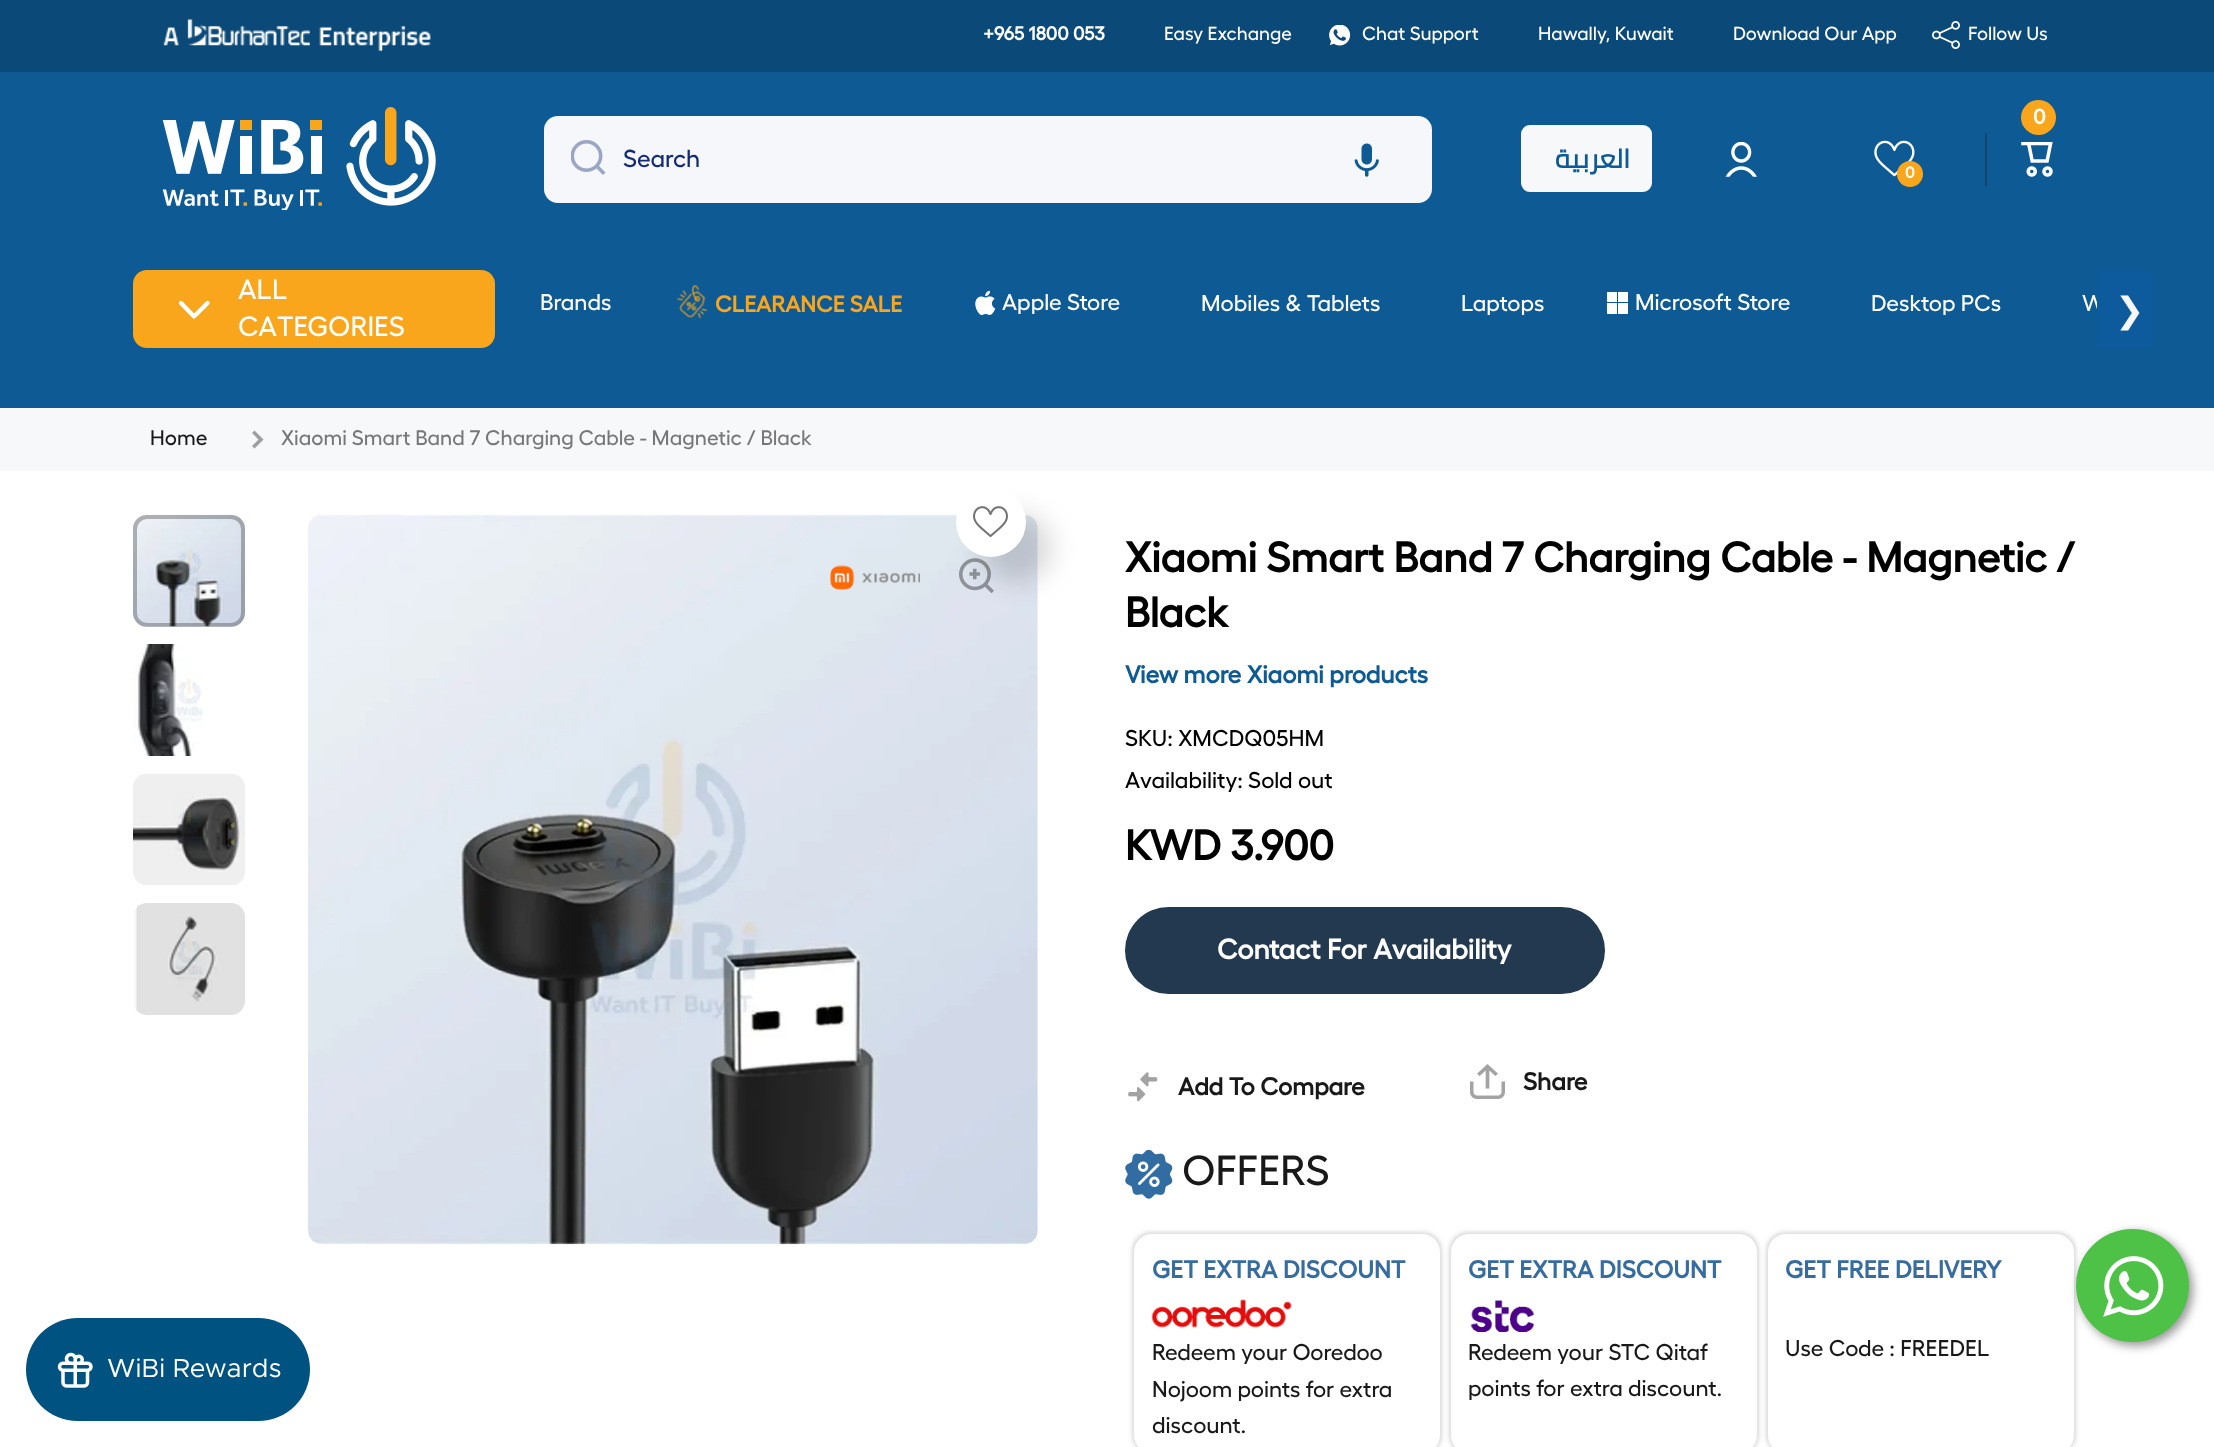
<svg xmlns="http://www.w3.org/2000/svg" width="2214" height="1447" viewBox="0 0 2214 1447">
  <rect width="100%" height="100%" fill="#fff"/>
  <path d="M0 0h2214v72H0z" fill="#0b4978"/>
  <image x="163" y="19" width="268" height="33" href="img/1.png"/>
  <image x="1329" y="25" width="22" height="21" href="img/2.png"/>
  <image x="1932" y="21" width="28" height="28" href="img/3.png"/>
  <path d="M0 72h2214v336H0z" fill="#0d5a94"/>
  <image x="162" y="107" width="274" height="103" href="img/4.png"/>
  <rect x="544" y="116" width="888" height="87" rx="14" fill="#f6f7fa"/>
  <image x="571" y="140" width="35" height="35" href="img/5.png"/>
  <image x="1354" y="143" width="25" height="34" href="img/6.png"/>
  <rect x="1520" y="124" width="133" height="69" rx="10" fill="#f7f8fa" stroke="#0d5a94" stroke-width="2"/>
  <circle cx="2038.5" cy="117.5" r="17.5" fill="#faa61c"/>
  <path d="M1985 133h2v53H1985z" fill="#11476f"/>
  <image x="2021" y="142" width="32" height="35" href="img/7.png"/>
  <image x="1725" y="142" width="32" height="35" href="img/8.png"/>
  <image x="1874" y="140" width="41" height="37" href="img/9.png"/>
  <circle cx="1910" cy="174" r="13" fill="#faa61c"/>
  <rect x="133" y="270" width="362" height="78" rx="14" fill="#faa61c"/>
  <path d="M181 303L194 316.5L207.5 303" fill="none" stroke="#fff" stroke-width="4.4" stroke-linecap="round" stroke-linejoin="round"/>
  <image x="676" y="285" width="32" height="34" href="img/10.png"/>
  <image x="975" y="291" width="21" height="24" href="img/11.png"/>
  <path d="M1607 292h10v10H1607z" fill="#fff"/>
  <path d="M1618 292h10v10H1618z" fill="#fff"/>
  <path d="M1607 303h10v11H1607z" fill="#fff"/>
  <path d="M1618 303h10v11H1618z" fill="#fff"/>
  <path d="M0 408h2214v63H0z" fill="#f7f8fa"/>
  <path d="M258.5 439.5L252 433L254.5 430.5L263.5 439.5L254.5 448.5L252 446Z" fill="#9e9fa0" fill-rule="evenodd"/>
  <image x="133" y="514" width="112" height="113" href="img/12.png"/>
  <rect x="135" y="517" width="108" height="108" rx="12" fill="none" stroke="#1919194d" stroke-width="4"/>
  <image x="133" y="644" width="71" height="112" href="img/13.png"/>
  <image x="133" y="773" width="112" height="113" href="img/14.png"/>
  <image x="134" y="903" width="111" height="112" href="img/15.png"/>
  <image x="308" y="514" width="730" height="731" href="img/17.png"/>
  <image x="959" y="558" width="35" height="35" href="img/18.png"/>
  <rect x="982" y="513" width="70" height="70" rx="35" fill="#00000026" filter="blur(13px)"/>
  <circle cx="991" cy="522" r="35" fill="#fff"/>
  <image x="973" y="506" width="35" height="31" href="img/16.png"/>
  <image x="830" y="565" width="90" height="25" href="img/19.png"/>
  <rect x="1125" y="907" width="480" height="87" rx="43.5" fill="#233950"/>
  <image x="1128" y="1072" width="30" height="30" href="img/20.png"/>
  <image x="1470" y="1064" width="35" height="35" href="img/21.png"/>
  <image x="1125" y="1150" width="48" height="49" href="img/22.png"/>
  <rect x="1132" y="1232" width="310" height="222" rx="19" fill="#00000026" filter="blur(2px)"/>
  <rect x="1134" y="1234" width="306" height="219" rx="18" fill="#fff"/>
  <image x="1151" y="1299" width="141" height="31" href="img/23.png"/>
  <rect x="1449" y="1232" width="310" height="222" rx="19" fill="#00000026" filter="blur(2px)"/>
  <rect x="1451" y="1234" width="306" height="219" rx="18" fill="#fff"/>
  <image x="1469" y="1300" width="66" height="33" href="img/24.png"/>
  <rect x="1766" y="1232" width="310" height="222" rx="19" fill="#00000026" filter="blur(2px)"/>
  <rect x="1768" y="1234" width="306" height="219" rx="18" fill="#fff"/>
  <rect x="2079" y="1232" width="114" height="114" rx="57" fill="#00000066" filter="blur(5px)"/>
  <circle cx="2132.5" cy="1285.5" r="56.5" fill="#4dc247"/>
  <image x="2103" y="1256" width="61" height="61" href="img/25.png"/>
  <rect x="26" y="1318" width="284" height="103" rx="51.5" fill="#005380"/>
  <image x="57" y="1352" width="36" height="36" href="img/26.png"/>
  <text x="983" y="40" font-family="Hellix" font-size="19" font-weight="bold" fill="#fff">+965 1800 053</text>
  <g font-family="Hellix" font-size="19" font-weight="500" fill="#fff">
    <text x="1164" y="40">Easy Exchange</text>
    <text x="1362" y="40">Chat Support</text>
    <text x="1538" y="40">Hawally, Kuwait</text>
    <text x="1733" y="40">Download Our App</text>
    <text x="1968" y="40">Follow Us</text>
  </g>
  <text x="623" y="167" font-family="Hellix" font-size="24.5" font-weight="500" fill="#142c73">Search</text>
  <text x="1630" y="168" font-family="Cairo" font-size="26.25" font-weight="bold" letter-spacing="0.75" direction="rtl" fill="#0d5a94">العربية</text>
  <text x="2033" y="124" font-family="Hellix" font-size="21" font-weight="bold" fill="#fff">0</text>
  <text x="1905" y="178" font-family="Hellix" font-size="16" font-weight="bold" fill="#fff">0</text>
  <g font-family="Hellix" font-size="28" font-weight="500" fill="#fff">
    <text x="238" y="299">ALL</text>
    <text x="238" y="336">CATEGORIES</text>
  </g>
  <text x="540" y="310" font-family="Hellix" font-size="22.75" font-weight="500" fill="#fff">Brands</text>
  <text x="715" y="312" font-family="Hellix" font-size="22.75" font-weight="bold" fill="#faa61c">CLEARANCE SALE</text>
  <g font-family="Hellix" font-size="22.75" font-weight="500" fill="#fff">
    <text x="1002" y="310">Apple Store</text>
    <text x="1201" y="311">Mobiles &amp; Tablets</text>
    <text x="1461" y="311">Laptops</text>
    <text x="1635" y="310">Microsoft Store</text>
    <text x="1871" y="311">Desktop PCs</text>
    <text x="2082" y="311">W</text>
  </g>
  <path d="M2097 271h56v77H2097z" fill="#0d5a9c"/>
  <text x="2115" y="322" font-family="DejaVu Sans" font-size="35" fill="#f6f7fa">❯</text>
  <text x="150" y="445" font-family="Hellix" font-size="21" font-weight="500" fill="#191919">Home</text>
  <text x="281" y="445" font-family="Hellix" font-size="21" font-weight="500" fill="#777">Xiaomi Smart Band 7 Charging Cable - Magnetic / Black</text>
  <g font-family="Hellix" font-size="42" font-weight="bold" fill="#000">
    <text x="1125" y="572">Xiaomi Smart Band 7 Charging Cable - Magnetic /</text>
    <text x="1125" y="627">Black</text>
  </g>
  <text x="1125" y="683" font-family="Hellix" font-size="24.5" font-weight="bold" fill="#0d5a94">View more Xiaomi products</text>
  <g font-family="Hellix" font-size="22.75" font-weight="500" fill="#000">
    <text x="1125" y="746">SKU: XMCDQ05HM</text>
    <text x="1125" y="788">Availability: Sold out</text>
  </g>
  <text x="1125" y="860" font-family="Hellix" font-size="42" font-weight="bold" fill="#000">KWD 3.900</text>
  <text x="1217" y="959" font-family="Hellix" font-size="28" font-weight="bold" fill="#fff">Contact For Availability</text>
  <g font-family="Hellix" font-size="24.5" font-weight="bold" fill="#191919">
    <text x="1178" y="1095">Add To Compare</text>
    <text x="1523" y="1090">Share</text>
  </g>
  <text x="1182" y="1185" font-family="Hellix" font-size="42" font-weight="500" fill="#191919">OFFERS</text>
  <text x="1152" y="1278" font-family="Hellix" font-size="24.5" font-weight="bold" fill="#376ca0">GET EXTRA DISCOUNT</text>
  <g font-family="Hellix" font-size="22.75" font-weight="500" fill="#191919">
    <text x="1152" y="1360">Redeem your Ooredoo</text>
    <text x="1152" y="1397">Nojoom points for extra</text>
    <text x="1152" y="1433">discount.</text>
  </g>
  <text x="1468" y="1278" font-family="Hellix" font-size="24.5" font-weight="bold" fill="#376ca0">GET EXTRA DISCOUNT</text>
  <g font-family="Hellix" font-size="22.75" font-weight="500" fill="#191919">
    <text x="1468" y="1360">Redeem your STC Qitaf</text>
    <text x="1468" y="1396">points for extra discount.</text>
  </g>
  <text x="1785" y="1278" font-family="Hellix" font-size="24.5" font-weight="bold" fill="#376ca0">GET FREE DELIVERY</text>
  <text x="1785" y="1356" font-family="Hellix" font-size="22.75" font-weight="500" fill="#191919">Use Code : FREEDEL</text>
  <text x="107" y="1377" font-family="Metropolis" font-size="26.25" fill="#fff">WiBi Rewards</text>
</svg>
